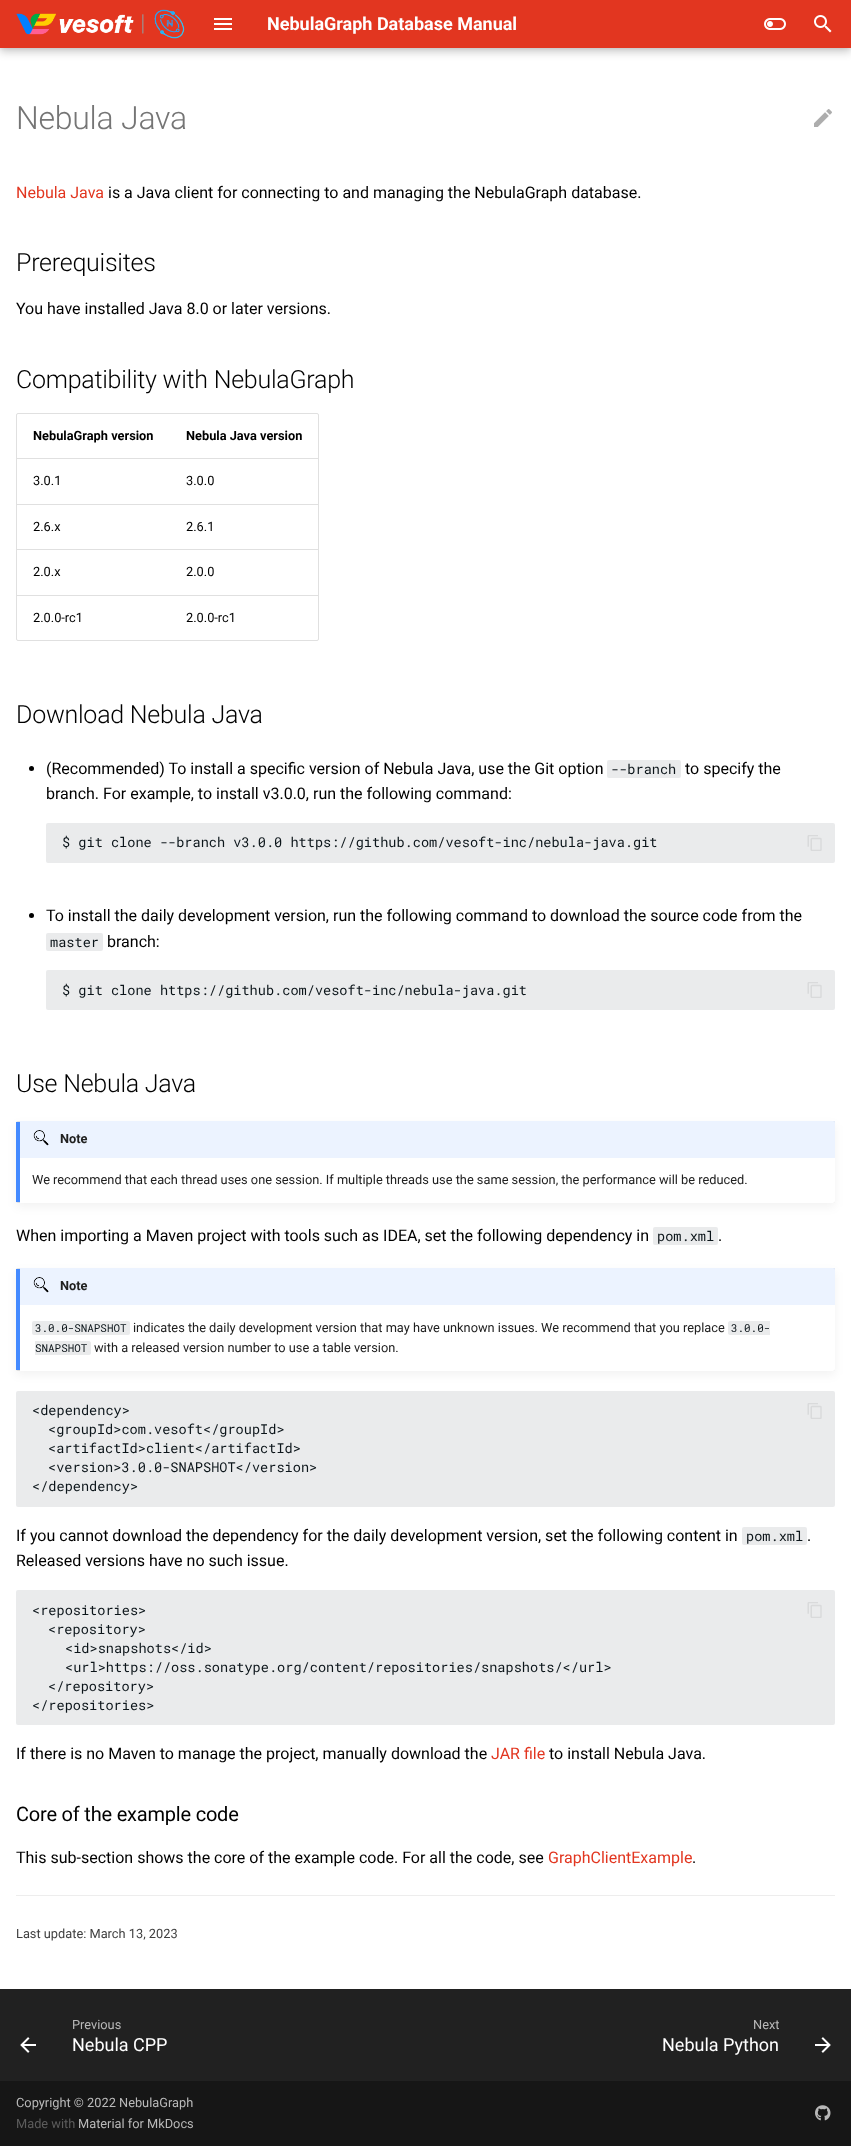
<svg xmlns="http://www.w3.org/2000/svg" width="851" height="2146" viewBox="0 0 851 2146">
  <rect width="100%" height="100%" fill="#fff"/>
  <path d="M0 4h851v48H0z" fill="#00000033" filter="blur(4px)"/>
  <path d="M0 0h851v48H0z" fill="#0000001a" filter="blur(2px)"/>
  <path d="M0 0h851v48H0z" fill="#e23620"/>
  <image x="16" y="9" width="169" height="30" href="img/1.png"/>
  <image x="214" y="18" width="18" height="12" href="img/2.png"/>
  <image x="764" y="18" width="22" height="12" href="img/3.png"/>
  <image x="814" y="15" width="18" height="18" href="img/4.png"/>
  <image x="814" y="109" width="18" height="18" href="img/5.png"/>
  <rect x="16.5" y="413.5" width="302" height="227" rx="1.5" fill="none" stroke="#e0e0e0"/>
  <path d="M17 458h301v1H17z" fill="#e0e0e0"/>
  <path d="M17 504h301v1H17z" fill="#e0e0e0"/>
  <path d="M17 549h301v1H17z" fill="#e0e0e0"/>
  <path d="M17 595h301v1H17z" fill="#e0e0e0"/>
  <circle cx="31.5" cy="768.5" r="2.5" fill="#000"/>
  <rect x="607" y="760" width="74" height="18" rx="2" fill="#eaebec"/>
  <rect x="46" y="823" width="789" height="40" rx="2" fill="#eaebec"/>
  <image x="807" y="835" width="15" height="16" href="img/6.png"/>
  <circle cx="31.5" cy="915.5" r="2.5" fill="#000"/>
  <rect x="46" y="933" width="57" height="18" rx="2" fill="#eaebec"/>
  <rect x="46" y="970" width="789" height="40" rx="2" fill="#eaebec"/>
  <image x="807" y="982" width="15" height="16" href="img/6.png"/>
  <rect x="16" y="1121" width="819" height="82" rx="2" fill="#0000001a" filter="blur(0.5px)"/>
  <rect x="16" y="1125" width="819" height="82" rx="2" fill="#0000000d" filter="blur(5px)"/>
  <path d="M20 1121H833C834 1121 835 1122 835 1123V1201C835 1202 834 1203 833 1203H20Z" fill="#fff"/>
  <path d="M16 1122h4v80H16z" fill="#448aff"/>
  <path d="M20 1121h815v37H20z" fill="#448aff1a"/>
  <image x="33" y="1130" width="16" height="16" href="img/7.png"/>
  <rect x="653" y="1227" width="65" height="18" rx="2" fill="#eaebec"/>
  <rect x="16" y="1268" width="819" height="103" rx="2" fill="#0000001a" filter="blur(0.5px)"/>
  <rect x="16" y="1272" width="819" height="103" rx="2" fill="#0000000d" filter="blur(5px)"/>
  <path d="M20 1268H833C834 1268 835 1269 835 1270V1369C835 1370 834 1371 833 1371H20Z" fill="#fff"/>
  <path d="M16 1269h4v101H16z" fill="#448aff"/>
  <path d="M20 1268h815v37H20z" fill="#448aff1a"/>
  <image x="33" y="1277" width="16" height="16" href="img/7.png"/>
  <rect x="32" y="1321" width="98" height="14" rx="2" fill="#eaebec"/>
  <path d="M730 1321H770V1335H730C729 1335 728 1334 728 1333V1323C728 1322 729 1321 730 1321Z" fill="#eaebec"/>
  <path d="M35 1341H89C90 1341 91 1342 91 1343V1353C91 1354 90 1355 89 1355H35Z" fill="#eaebec"/>
  <rect x="16" y="1391" width="819" height="116" rx="2" fill="#eaebec"/>
  <image x="807" y="1403" width="15" height="16" href="img/6.png"/>
  <rect x="742" y="1527" width="65" height="18" rx="2" fill="#eaebec"/>
  <rect x="16" y="1590" width="819" height="135" rx="2" fill="#eaebec"/>
  <image x="807" y="1602" width="15" height="16" href="img/6.png"/>
  <path d="M16 1895h819v1H16z" fill="#ededed"/>
  <path d="M0 1989h851v92H0z" fill="#212121"/>
  <image x="20" y="2037" width="16" height="16" href="img/8.png"/>
  <image x="815" y="2037" width="16" height="16" href="img/9.png"/>
  <path d="M0 2081h851v65H0z" fill="#161616"/>
  <image x="815" y="2105" width="16" height="16" href="img/10.png"/>
  <text x="267" y="30" font-family="Roboto" font-size="18" font-weight="bold" fill="#fff">NebulaGraph Database Manual</text>
  <text x="16" y="129" font-family="Roboto" font-size="32" font-weight="300" letter-spacing="-0.25" fill="#757575">Nebula Java</text>
  <text x="16" y="198" font-family="Roboto" font-size="16" fill="#e23620">Nebula Java</text>
  <text x="108" y="198" font-family="Roboto" font-size="16" fill="#000">is a Java client for connecting to and managing the NebulaGraph database.</text>
  <text x="16" y="271" font-family="Roboto" font-size="25" font-weight="300" letter-spacing="-0.25" fill="#000">Prerequisites</text>
  <text x="16" y="314" font-family="Roboto" font-size="16" fill="#000">You have installed Java 8.0 or later versions.</text>
  <text x="16" y="388" font-family="Roboto" font-size="25" font-weight="300" letter-spacing="-0.25" fill="#000">Compatibility with NebulaGraph</text>
  <g font-family="Roboto" font-size="12.8" font-weight="bold" fill="#000">
    <text x="33" y="440">NebulaGraph version</text>
    <text x="186" y="440">Nebula Java version</text>
  </g>
  <g font-family="Roboto" font-size="12.8" fill="#000">
    <text x="33" y="485">3.0.1</text>
    <text x="186" y="485">3.0.0</text>
    <text x="33" y="531">2.6.x</text>
    <text x="186" y="531">2.6.1</text>
    <text x="33" y="576">2.0.x</text>
    <text x="186" y="576">2.0.0</text>
    <text x="33" y="622">2.0.0-rc1</text>
    <text x="186" y="622">2.0.0-rc1</text>
  </g>
  <text x="16" y="723" font-family="Roboto" font-size="25" font-weight="300" letter-spacing="-0.25" fill="#000">Download Nebula Java</text>
  <text x="46" y="774" font-family="Roboto" font-size="16" fill="#000">(Recommended) To install a specific version of Nebula Java, use the Git option</text>
  <text x="611" y="774" font-family="Roboto Mono" font-size="13.6" fill="#0c151a">--branch</text>
  <g font-family="Roboto" font-size="16" fill="#000">
    <text x="685" y="774">to specify the</text>
    <text x="46" y="799">branch. For example, to install v3.0.0, run the following command:</text>
  </g>
  <text x="62" y="847" font-family="Roboto Mono" font-size="13.6" fill="#0c151a">$ git clone --branch v3.0.0 https://github.com/vesoft-inc/nebula-java.git</text>
  <text x="46" y="921" font-family="Roboto" font-size="16" fill="#000">To install the daily development version, run the following command to download the source code from the</text>
  <text x="50" y="947" font-family="Roboto Mono" font-size="13.6" fill="#0c151a">master</text>
  <text x="107" y="947" font-family="Roboto" font-size="16" fill="#000">branch:</text>
  <text x="62" y="995" font-family="Roboto Mono" font-size="13.6" fill="#0c151a">$ git clone https://github.com/vesoft-inc/nebula-java.git</text>
  <text x="16" y="1092" font-family="Roboto" font-size="25" font-weight="300" letter-spacing="-0.25" fill="#000">Use Nebula Java</text>
  <text x="60" y="1143" font-family="Roboto" font-size="12.8" font-weight="bold" fill="#212121">Note</text>
  <text x="32" y="1184" font-family="Roboto" font-size="12.8" fill="#212121">We recommend that each thread uses one session. If multiple threads use the same session, the performance will be reduced.</text>
  <text x="16" y="1241" font-family="Roboto" font-size="16" fill="#000">When importing a Maven project with tools such as IDEA, set the following dependency in</text>
  <text x="657" y="1241" font-family="Roboto Mono" font-size="13.6" fill="#0c151a">pom.xml</text>
  <text x="718" y="1241" font-family="Roboto" font-size="16" fill="#000">.</text>
  <text x="60" y="1290" font-family="Roboto" font-size="12.8" font-weight="bold" fill="#212121">Note</text>
  <text x="35" y="1332" font-family="Roboto Mono" font-size="10.9" fill="#0c151a">3.0.0-SNAPSHOT</text>
  <text x="133" y="1332" font-family="Roboto" font-size="12.8" fill="#212121">indicates the daily development version that may have unknown issues. We recommend that you replace</text>
  <g font-family="Roboto Mono" font-size="10.9" fill="#0c151a">
    <text x="731" y="1332">3.0.0-</text>
    <text x="35" y="1352">SNAPSHOT</text>
  </g>
  <text x="94" y="1352" font-family="Roboto" font-size="12.8" fill="#212121">with a released version number to use a table version.</text>
  <g font-family="Roboto Mono" font-size="13.6" fill="#0c151a">
    <text x="32" y="1415">&lt;dependency&gt;</text>
    <text x="48" y="1434">&lt;groupId&gt;com.vesoft&lt;/groupId&gt;</text>
    <text x="48" y="1453">&lt;artifactId&gt;client&lt;/artifactId&gt;</text>
    <text x="48" y="1472">&lt;version&gt;3.0.0-SNAPSHOT&lt;/version&gt;</text>
    <text x="32" y="1491">&lt;/dependency&gt;</text>
  </g>
  <text x="16" y="1541" font-family="Roboto" font-size="16" fill="#000">If you cannot download the dependency for the daily development version, set the following content in</text>
  <text x="746" y="1541" font-family="Roboto Mono" font-size="13.6" fill="#0c151a">pom.xml</text>
  <g font-family="Roboto" font-size="16" fill="#000">
    <text x="807" y="1541">.</text>
    <text x="16" y="1566">Released versions have no such issue.</text>
  </g>
  <g font-family="Roboto Mono" font-size="13.6" fill="#0c151a">
    <text x="32" y="1615">&lt;repositories&gt;</text>
    <text x="48" y="1634">&lt;repository&gt;</text>
    <text x="65" y="1653">&lt;id&gt;snapshots&lt;/id&gt;</text>
    <text x="65" y="1672">&lt;url&gt;https://oss.sonatype.org/content/repositories/snapshots/&lt;/url&gt;</text>
    <text x="48" y="1691">&lt;/repository&gt;</text>
    <text x="32" y="1710">&lt;/repositories&gt;</text>
  </g>
  <text x="16" y="1759" font-family="Roboto" font-size="16" fill="#000">If there is no Maven to manage the project, manually download the</text>
  <text x="491" y="1759" font-family="Roboto" font-size="16" fill="#e23620">JAR file</text>
  <text x="549" y="1759" font-family="Roboto" font-size="16" fill="#000">to install Nebula Java.</text>
  <text x="16" y="1821" font-family="Roboto" font-size="20" letter-spacing="-0.2" fill="#000">Core of the example code</text>
  <text x="16" y="1863" font-family="Roboto" font-size="16" fill="#000">This sub-section shows the core of the example code. For all the code, see</text>
  <text x="548" y="1863" font-family="Roboto" font-size="16" fill="#e23620">GraphClientExample</text>
  <text x="692" y="1863" font-family="Roboto" font-size="16" fill="#000">.</text>
  <text x="16" y="1938" font-family="Roboto" font-size="12.8" fill="#404040">Last update: March 13, 2023</text>
  <text x="72" y="2029" font-family="Roboto" font-size="12.8" fill="#b9b9b9">Previous</text>
  <text x="72" y="2051" font-family="Roboto" font-size="18" fill="#fff">Nebula CPP</text>
  <text x="753" y="2029" font-family="Roboto" font-size="12.8" fill="#b9b9b9">Next</text>
  <text x="662" y="2051" font-family="Roboto" font-size="18" fill="#fff">Nebula Python</text>
  <text x="16" y="2107" font-family="Roboto" font-size="12.8" fill="#b9b9b9">Copyright © 2022 NebulaGraph</text>
  <text x="16" y="2128" font-family="Roboto" font-size="12.8" fill="#5c5c5c">Made with</text>
  <text x="78" y="2128" font-family="Roboto" font-size="12.8" fill="#b9b9b9">Material for MkDocs</text>
</svg>
